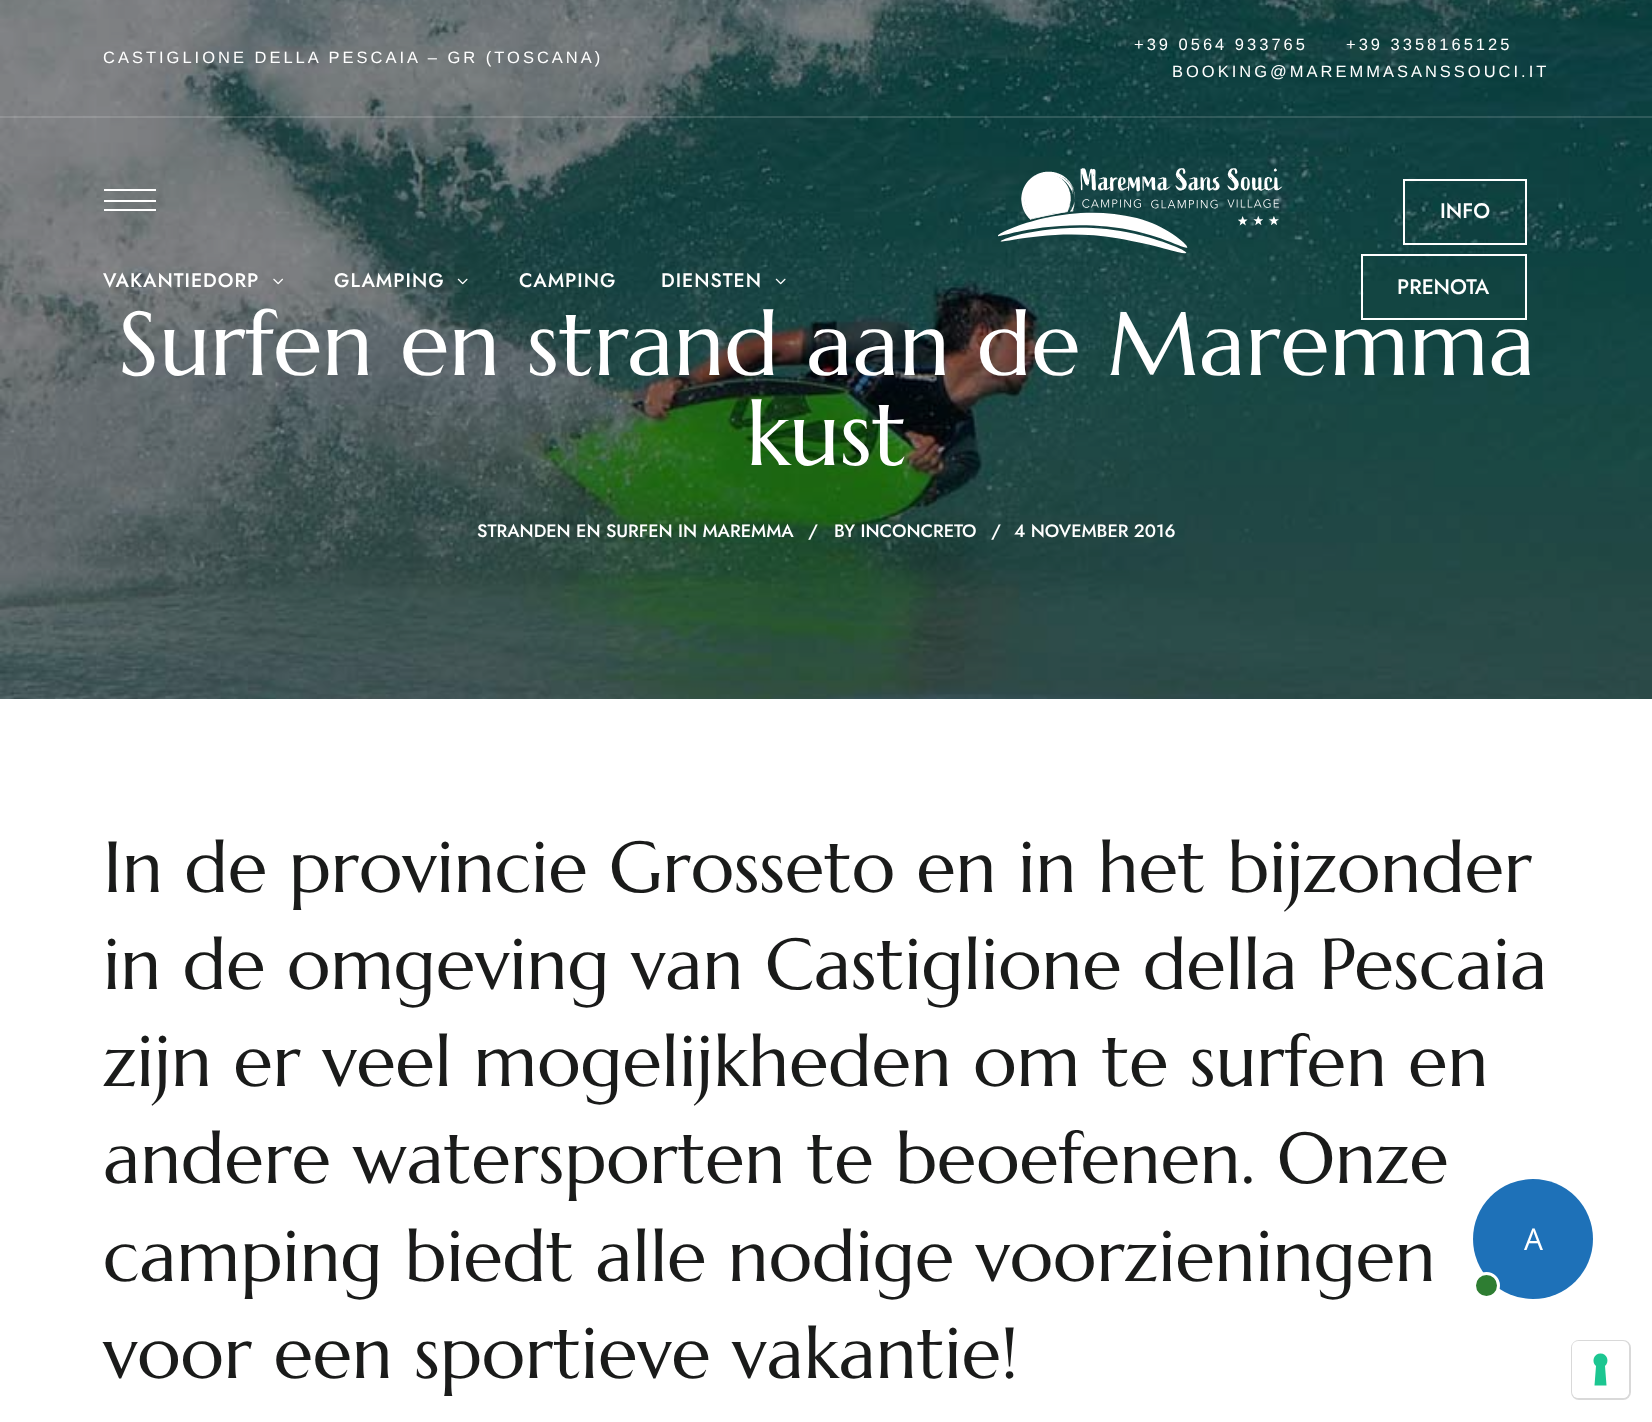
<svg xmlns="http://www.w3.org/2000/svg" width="1652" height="1422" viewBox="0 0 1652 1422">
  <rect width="100%" height="100%" fill="#fff"/>
  <image x="0" y="0" width="1652" height="699" href="img/5.png"/>
  <path d="M0 116h1652v2H0z" fill="#ffffff24"/>
  <path d="M104 189h52v2H104z" fill="#fff"/>
  <path d="M104 209h52v2H104z" fill="#fff"/>
  <path d="M104 200h52v2H104z" fill="#fff"/>
  <image x="273" y="278" width="10" height="7" href="img/1.png"/>
  <image x="457" y="278" width="11" height="7" href="img/2.png"/>
  <image x="775" y="278" width="11" height="7" href="img/3.png"/>
  <image x="998" y="168" width="285" height="86" href="img/4.png"/>
  <path d="M1404 180h122v64H1404z" fill="none" stroke="#fff" stroke-width="2"/>
  <path d="M1362 255h164v64H1362z" fill="none" stroke="#fff" stroke-width="2"/>
  <circle cx="1533" cy="1239" r="60" fill="#1e71b8"/>
  <circle cx="1486.5" cy="1285.5" r="12" fill="#2e7d32" stroke="#fff" stroke-width="3"/>
  <rect x="1572" y="1341" width="58" height="58" rx="7" fill="none" stroke="#d9d9d9" stroke-width="2"/>
  <rect x="1572" y="1341" width="57" height="57" rx="6" fill="#fff"/>
  <path d="M1600.5 1353.5C1607 1353.5 1610 1361.5 1605 1366L1606.5 1385.5H1594.5L1596 1366C1591 1361.5 1594 1353.5 1600.5 1353.5Z" fill="#1cc691" fill-rule="evenodd"/>
  <g font-family="Liberation Sans" font-size="16.5" letter-spacing="3" fill="#fff">
    <text x="103" y="63">CASTIGLIONE DELLA PESCAIA – GR (TOSCANA)</text>
    <text x="1134" y="50">+39 0564 933765</text>
    <text x="1346" y="50">+39 3358165125</text>
    <text x="1172" y="77">BOOKING@MAREMMASANSSOUCI.IT</text>
  </g>
  <g font-family="Jost" font-size="19.5" font-weight="500" letter-spacing="1" fill="#fff">
    <text x="103" y="287">VAKANTIEDORP</text>
    <text x="334" y="287">GLAMPING</text>
    <text x="519" y="287">CAMPING</text>
    <text x="661" y="287">DIENSTEN</text>
  </g>
  <g font-family="Jost" font-size="21" font-weight="500" fill="#fff">
    <text x="1440" y="218">INFO</text>
    <text x="1397" y="294">PRENOTA</text>
  </g>
  <g font-family="Marcellus" font-size="90" fill="#fff">
    <text x="118" y="375">Surfen en strand aan de Maremma</text>
    <text x="746" y="465">kust</text>
  </g>
  <g font-family="Jost" font-size="18" font-weight="500" fill="#fff">
    <text x="477" y="537">STRANDEN EN SURFEN IN MAREMMA</text>
    <text x="808" y="537">/</text>
    <text x="834" y="537">BY INCONCRETO</text>
    <text x="991" y="537">/</text>
    <text x="1014" y="537">4 NOVEMBER 2016</text>
  </g>
  <g font-family="Marcellus" font-size="72" fill="#1a1b1a">
    <text x="103" y="892">In de provincie Grosseto en in het bijzonder</text>
    <text x="103" y="989">in de omgeving van Castiglione della Pescaia</text>
    <text x="103" y="1086">zijn er veel mogelijkheden om te surfen en</text>
    <text x="103" y="1183">andere watersporten te beoefenen. Onze</text>
    <text x="103" y="1281">camping biedt alle nodige voorzieningen</text>
    <text x="103" y="1378">voor een sportieve vakantie!</text>
  </g>
  <text x="1524" y="1250" font-family="Open Sans" font-size="30" fill="#fff">A</text>
</svg>
